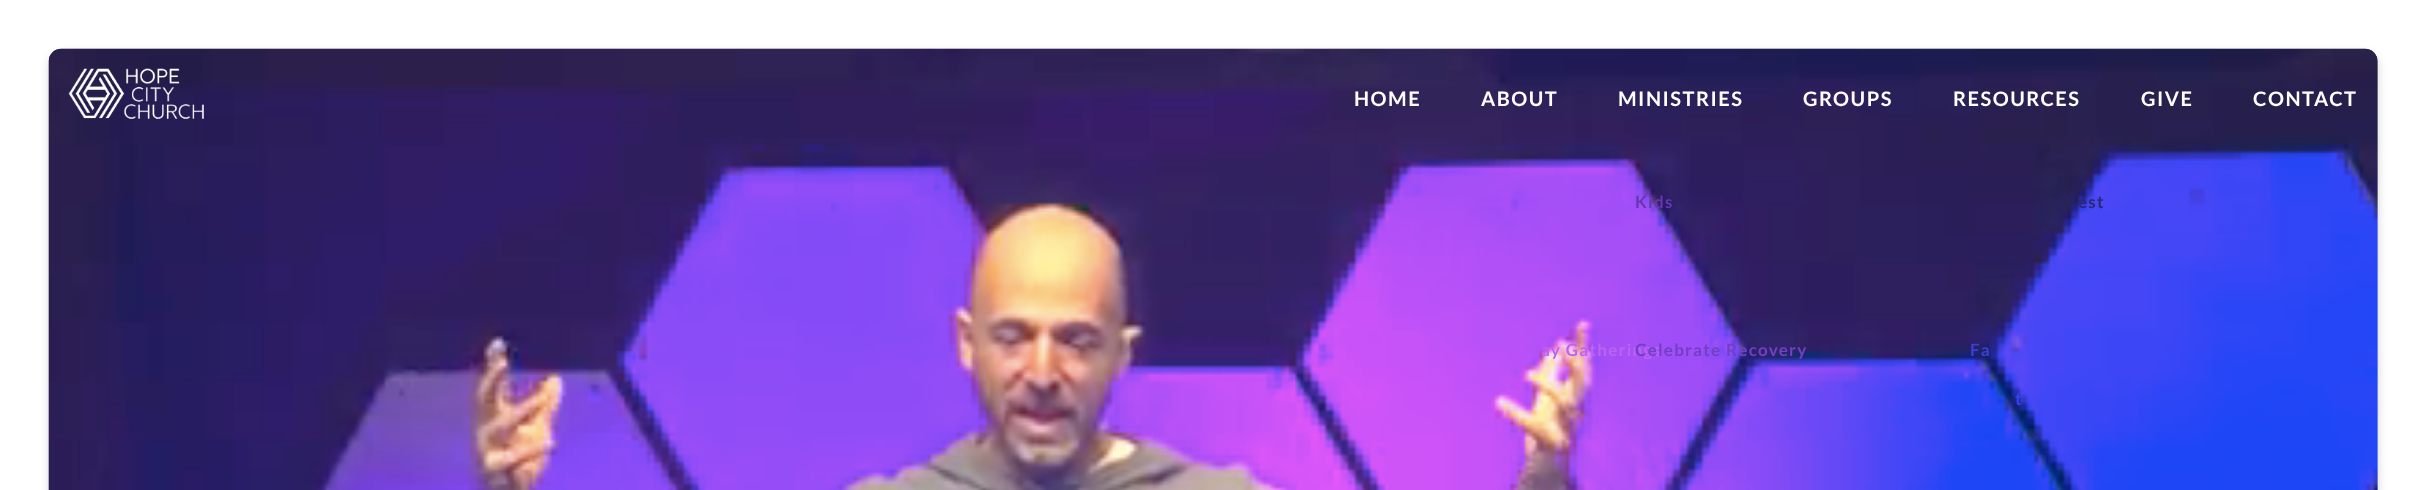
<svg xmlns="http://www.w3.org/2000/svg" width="2426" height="490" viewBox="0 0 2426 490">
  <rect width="100%" height="100%" fill="#fff"/>
  <rect x="49" y="54" width="2329" height="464" rx="13" fill="#0000002b" filter="blur(5px)"/>
  <image x="48" y="48" width="2330" height="442" href="img/1.png"/>
  <image x="48" y="48" width="2330" height="442" href="img/2.png"/>
  <image x="68" y="68" width="136" height="51" href="img/3.png"/>
  <g font-family="Lato" font-size="20" font-weight="bold" letter-spacing="1.5" fill="#fff">
    <text x="1354" y="106">HOME</text>
    <text x="1481" y="106">ABOUT</text>
  </g>
  <text x="1541" y="356" font-family="Lato" font-size="17" font-weight="bold" letter-spacing="1.25" fill="#bc64ef">ay Gatherings</text>
  <text x="1618" y="106" font-family="Lato" font-size="20" font-weight="bold" letter-spacing="1.5" fill="#fff">MINISTRIES</text>
  <text x="1635" y="208" font-family="Lato" font-size="17" font-weight="bold" letter-spacing="1.25" fill="#6537ae">Kids</text>
  <text x="1635" y="356" font-family="Lato" font-size="17" font-weight="bold" letter-spacing="1.25" fill="#7240c4">Celebrate Recovery</text>
  <g font-family="Lato" font-size="20" font-weight="bold" letter-spacing="1.5" fill="#fff">
    <text x="1803" y="106">GROUPS</text>
    <text x="1953" y="106">RESOURCES</text>
  </g>
  <text x="2078" y="208" font-family="Lato" font-size="17" font-weight="bold" letter-spacing="1.25" fill="#2d2675">est</text>
  <text x="1970" y="356" font-family="Lato" font-size="17" font-weight="bold" letter-spacing="1.25" fill="#3e3ed6">Fa</text>
  <text x="2015" y="405" font-family="Lato" font-size="17" font-weight="bold" letter-spacing="1.25" fill="#3244ee">t</text>
  <g font-family="Lato" font-size="20" font-weight="bold" letter-spacing="1.5" fill="#fff">
    <text x="2141" y="106">GIVE</text>
    <text x="2253" y="106">CONTACT</text>
  </g>
</svg>
